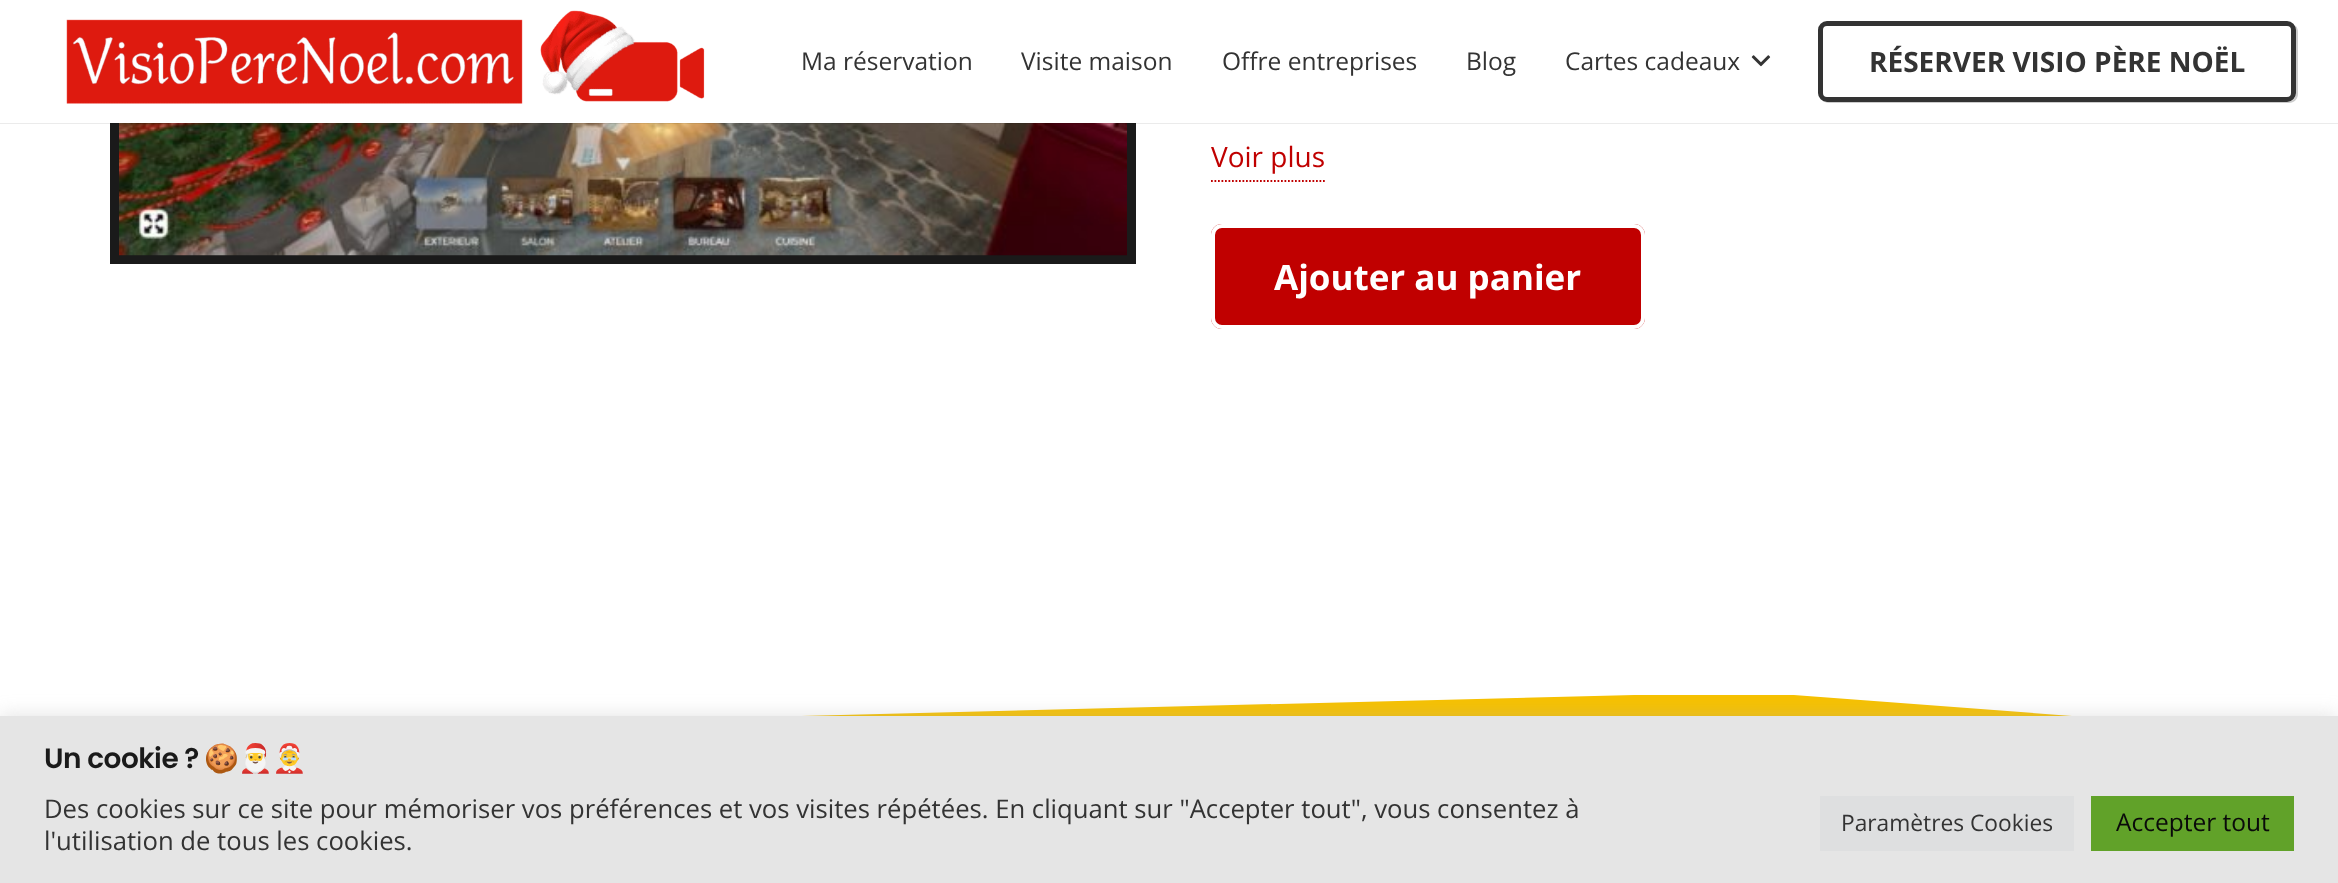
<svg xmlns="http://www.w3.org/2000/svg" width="2338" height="883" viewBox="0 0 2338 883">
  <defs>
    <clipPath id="clip1"><path d="M0 695h2338v42H0z"/></clipPath>
  </defs>
  <rect width="100%" height="100%" fill="#fff"/>
  <path d="M114.5 -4.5h1017v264H114.5z" fill="none" stroke="#1a1a1a" stroke-width="9"/>
  <image x="119" y="123" width="1008" height="133" href="img/3.png"/>
  <path d="M0 123h2338v1H0z" fill="#00000014"/>
  <path d="M110 0h1026v123H110z" fill="#fff"/>
  <image x="66" y="10" width="639" height="94" href="img/1.png"/>
  <image x="1751" y="55" width="20" height="12" href="img/2.png"/>
  <path d="M1823 101C1825 102 1827 103 1829 103H2289C2294 103 2298 99 2298 94V32C2298 29 2297 27 2295 25C2296 26 2296 28 2296 29V93C2296 98 2292 102 2288 102H1827Z" fill="#ccc"/>
  <rect x="1818" y="21" width="478" height="81" rx="9" fill="#fff"/>
  <rect x="1820.5" y="23.5" width="473" height="76" rx="6.5" fill="none" stroke="#333" stroke-width="5"/>
  <path d="M1211 181H1325" fill="none" stroke="#c00000" stroke-width="1.8" stroke-dasharray="1.75 1.75"/>
  <rect x="1211" y="224" width="434" height="105" rx="11" fill="#c00000"/>
  <rect x="1213" y="226" width="430" height="101" rx="9" fill="none" stroke="#fff" stroke-width="4"/>
  <path d="M799 695h1274v21H799z" fill="#f6c100"/>
  <g clip-path="url(#clip1)">
    <path d="M2338 691H0V736L1754 692L2338 736Z" fill="#fff"/>
  </g>
  <path d="M0 714h2338v168H0z" fill="#acabab4d" filter="blur(9px)"/>
  <path d="M0 716h2338v167H0z" fill="#e5e5e5"/>
  <path d="M1820 796h254v55H1820z" fill="#dedfe0"/>
  <path d="M2091 796h203v55H2091z" fill="#61a229"/>
  <g font-family="Open Sans" font-size="24.5" fill="#333">
    <text x="801" y="70">Ma réservation</text>
    <text x="1021" y="70">Visite maison</text>
    <text x="1222" y="70">Offre entreprises</text>
    <text x="1466" y="70">Blog</text>
    <text x="1565" y="70">Cartes cadeaux</text>
  </g>
  <text x="1869" y="72" font-family="Open Sans" font-size="28" font-weight="bold" fill="#333">RÉSERVER VISIO PÈRE NOËL</text>
  <text x="1211" y="167" font-family="Open Sans" font-size="28" fill="#c00000">Voir plus</text>
  <text x="1274" y="290" font-family="Open Sans" font-size="35" font-weight="bold" fill="#fff">Ajouter au panier</text>
  <text x="44" y="768" font-family="Poppins" font-size="28" font-weight="600" letter-spacing="-0.5" fill="#1a1a1a">Un cookie ?</text>
  <text x="204" y="768" font-family="Noto Color Emoji" font-size="28" font-weight="bold" letter-spacing="-0.5" fill="#1a1a1a">🍪🎅🤶</text>
  <g font-family="Open Sans" font-size="25.67" fill="#333">
    <text x="44" y="818">Des cookies sur ce site pour mémoriser vos préférences et vos visites répétées. En cliquant sur "Accepter tout", vous consentez à</text>
    <text x="44" y="850">l'utilisation de tous les cookies.</text>
  </g>
  <text x="1841" y="831" font-family="Open Sans" font-size="22.75" fill="#333">Paramètres Cookies</text>
  <text x="2116" y="831" font-family="Open Sans" font-size="24.5" fill="#0a0a0a">Accepter tout</text>
</svg>
